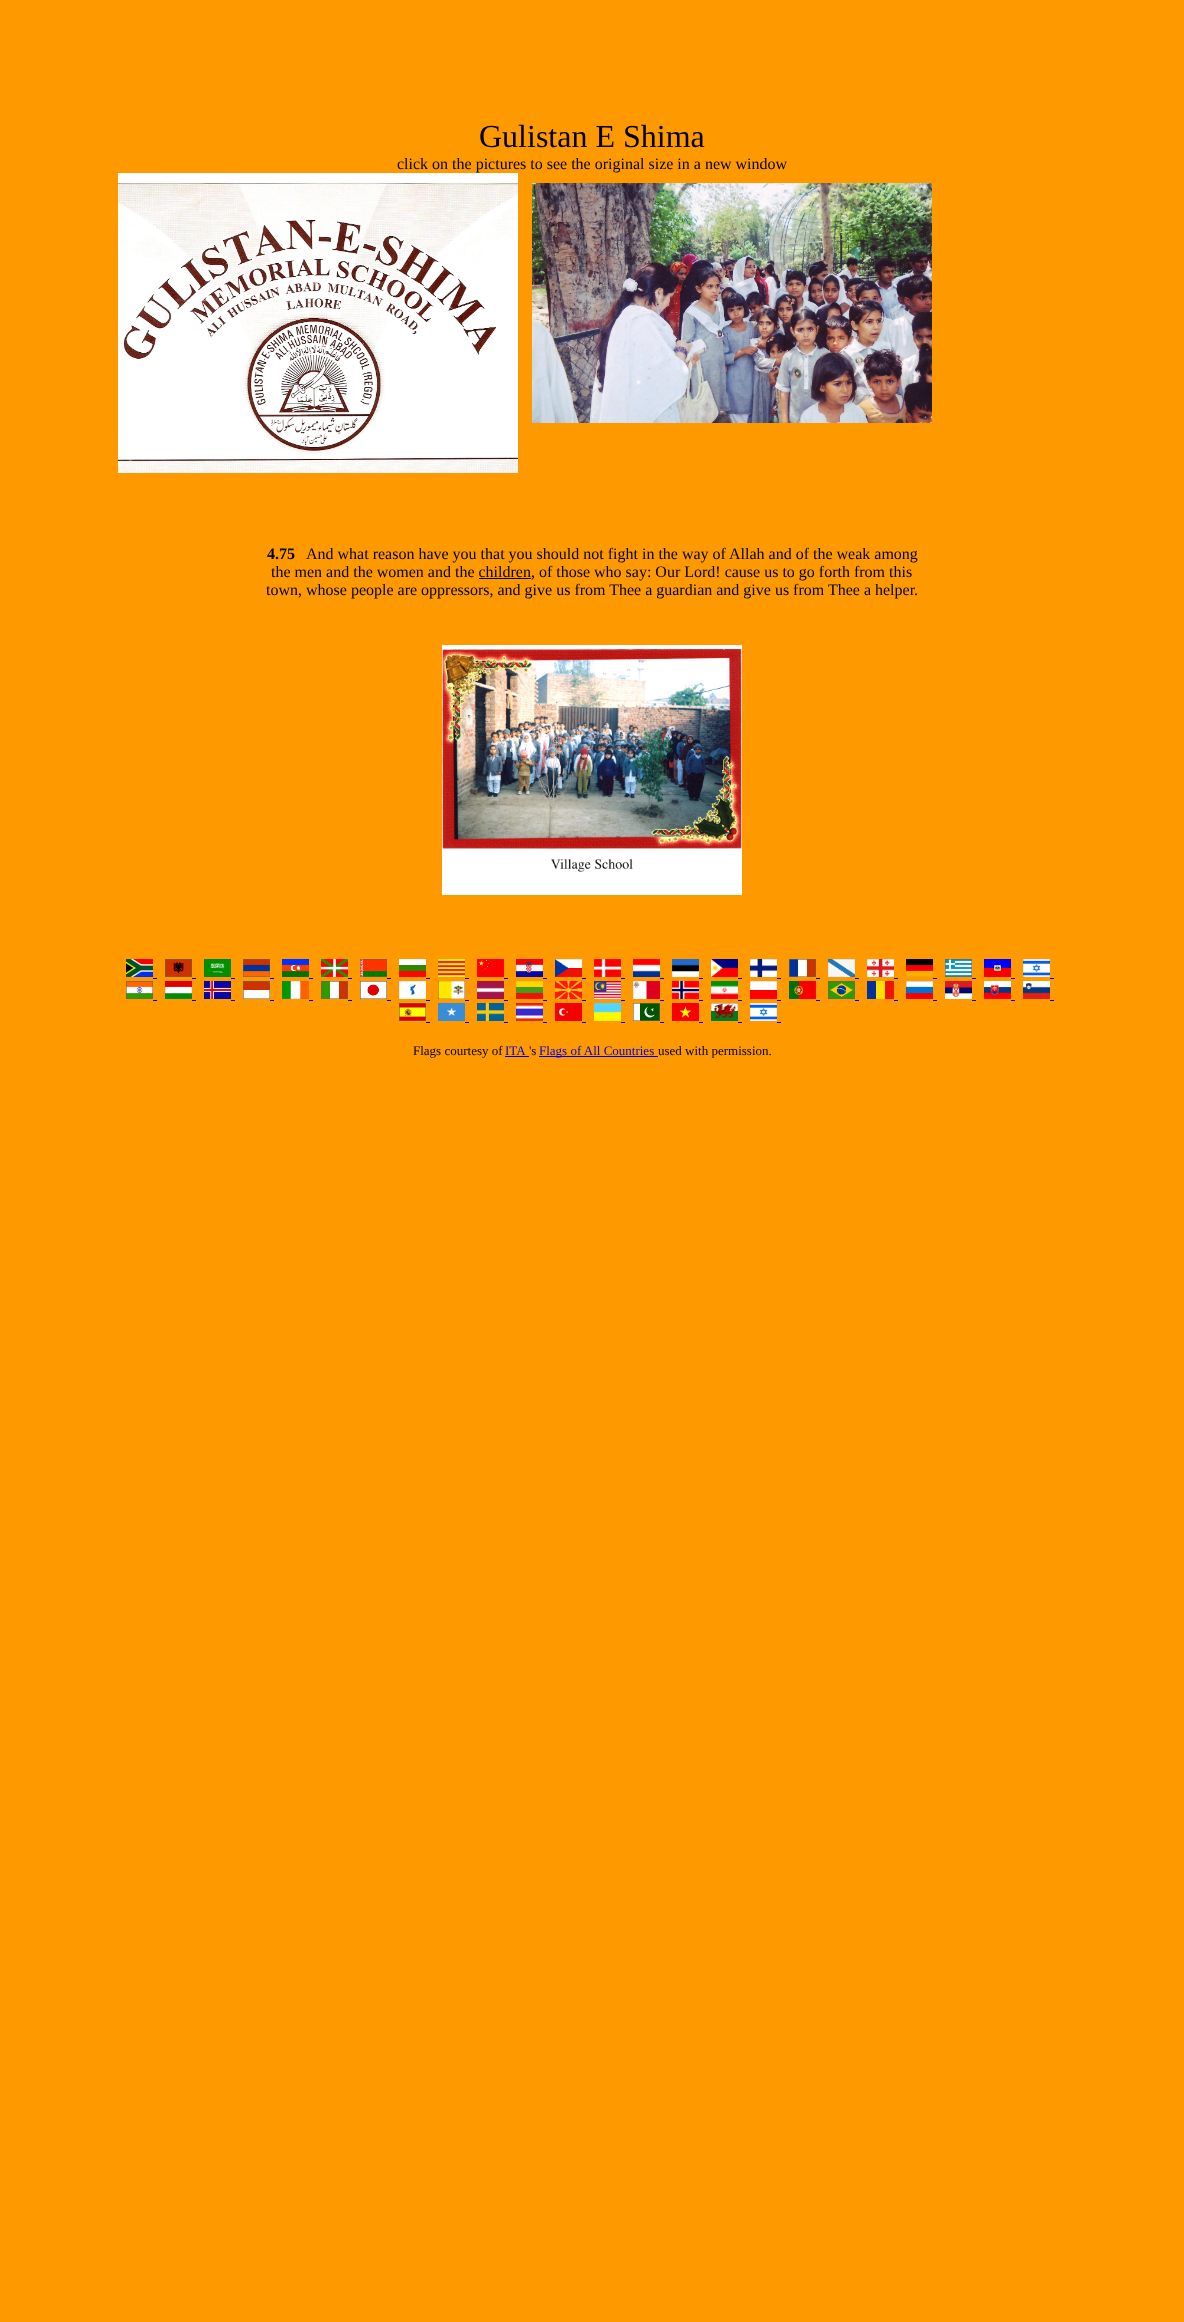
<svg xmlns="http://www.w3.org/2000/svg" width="1184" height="2322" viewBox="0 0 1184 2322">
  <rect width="100%" height="100%" fill="#f90"/>
  <image x="118" y="173" width="400" height="300" href="img/1.png"/>
  <image x="532" y="183" width="400" height="240" href="img/2.png"/>
  <path d="M479 578h52v1H479z" fill="#000"/>
  <image x="442" y="645" width="300" height="250" href="img/3.png"/>
  <image x="126" y="959" width="27" height="18" href="img/4.png"/>
  <image x="165" y="959" width="27" height="18" href="img/5.png"/>
  <image x="204" y="959" width="27" height="18" href="img/6.png"/>
  <image x="243" y="959" width="27" height="18" href="img/7.png"/>
  <image x="282" y="959" width="27" height="18" href="img/8.png"/>
  <image x="321" y="959" width="27" height="18" href="img/9.png"/>
  <image x="360" y="959" width="27" height="18" href="img/10.png"/>
  <image x="399" y="959" width="27" height="18" href="img/11.png"/>
  <image x="438" y="959" width="27" height="18" href="img/12.png"/>
  <image x="477" y="959" width="27" height="18" href="img/13.png"/>
  <image x="516" y="959" width="27" height="18" href="img/14.png"/>
  <image x="555" y="959" width="27" height="18" href="img/15.png"/>
  <image x="594" y="959" width="27" height="18" href="img/16.png"/>
  <image x="633" y="959" width="27" height="18" href="img/17.png"/>
  <image x="672" y="959" width="27" height="18" href="img/18.png"/>
  <image x="711" y="959" width="27" height="18" href="img/19.png"/>
  <image x="750" y="959" width="27" height="18" href="img/20.png"/>
  <image x="789" y="959" width="27" height="18" href="img/21.png"/>
  <image x="828" y="959" width="27" height="18" href="img/22.png"/>
  <image x="867" y="959" width="27" height="18" href="img/23.png"/>
  <image x="906" y="959" width="27" height="18" href="img/24.png"/>
  <image x="945" y="959" width="27" height="18" href="img/25.png"/>
  <image x="984" y="959" width="27" height="18" href="img/26.png"/>
  <image x="1023" y="959" width="27" height="18" href="img/27.png"/>
  <path d="M153 978h4v1H153z" fill="#00e"/>
  <path d="M192 978h4v1H192z" fill="#00e"/>
  <path d="M231 978h4v1H231z" fill="#00e"/>
  <path d="M270 978h4v1H270z" fill="#00e"/>
  <path d="M309 978h4v1H309z" fill="#00e"/>
  <path d="M348 978h4v1H348z" fill="#00e"/>
  <path d="M387 978h4v1H387z" fill="#00e"/>
  <path d="M426 978h4v1H426z" fill="#00e"/>
  <path d="M465 978h4v1H465z" fill="#00e"/>
  <path d="M504 978h4v1H504z" fill="#00e"/>
  <path d="M543 978h4v1H543z" fill="#00e"/>
  <path d="M582 978h4v1H582z" fill="#00e"/>
  <path d="M621 978h4v1H621z" fill="#00e"/>
  <path d="M660 978h4v1H660z" fill="#00e"/>
  <path d="M699 978h4v1H699z" fill="#00e"/>
  <path d="M738 978h4v1H738z" fill="#00e"/>
  <path d="M777 978h4v1H777z" fill="#00e"/>
  <path d="M816 978h4v1H816z" fill="#00e"/>
  <path d="M855 978h4v1H855z" fill="#00e"/>
  <path d="M894 978h4v1H894z" fill="#00e"/>
  <path d="M933 978h4v1H933z" fill="#00e"/>
  <path d="M972 978h4v1H972z" fill="#00e"/>
  <path d="M1011 978h4v1H1011z" fill="#00e"/>
  <path d="M1050 978h4v1H1050z" fill="#00e"/>
  <image x="126" y="981" width="27" height="18" href="img/28.png"/>
  <image x="165" y="981" width="27" height="18" href="img/29.png"/>
  <image x="204" y="981" width="27" height="18" href="img/30.png"/>
  <image x="243" y="981" width="27" height="18" href="img/31.png"/>
  <image x="282" y="981" width="27" height="18" href="img/32.png"/>
  <image x="321" y="981" width="27" height="18" href="img/33.png"/>
  <image x="360" y="981" width="27" height="18" href="img/34.png"/>
  <image x="399" y="981" width="27" height="18" href="img/35.png"/>
  <image x="438" y="981" width="27" height="18" href="img/36.png"/>
  <image x="477" y="981" width="27" height="18" href="img/37.png"/>
  <image x="516" y="981" width="27" height="18" href="img/38.png"/>
  <image x="555" y="981" width="27" height="18" href="img/39.png"/>
  <image x="594" y="981" width="27" height="18" href="img/40.png"/>
  <image x="633" y="981" width="27" height="18" href="img/41.png"/>
  <image x="672" y="981" width="27" height="18" href="img/42.png"/>
  <image x="711" y="981" width="27" height="18" href="img/43.png"/>
  <image x="750" y="981" width="27" height="18" href="img/44.png"/>
  <image x="789" y="981" width="27" height="18" href="img/45.png"/>
  <image x="828" y="981" width="27" height="18" href="img/46.png"/>
  <image x="867" y="981" width="27" height="18" href="img/47.png"/>
  <image x="906" y="981" width="27" height="18" href="img/48.png"/>
  <image x="945" y="981" width="27" height="18" href="img/49.png"/>
  <image x="984" y="981" width="27" height="18" href="img/50.png"/>
  <image x="1023" y="981" width="27" height="18" href="img/51.png"/>
  <path d="M153 1000h4v1H153z" fill="#00e"/>
  <path d="M192 1000h4v1H192z" fill="#00e"/>
  <path d="M231 1000h4v1H231z" fill="#00e"/>
  <path d="M270 1000h4v1H270z" fill="#00e"/>
  <path d="M309 1000h4v1H309z" fill="#00e"/>
  <path d="M348 1000h4v1H348z" fill="#00e"/>
  <path d="M387 1000h4v1H387z" fill="#00e"/>
  <path d="M426 1000h4v1H426z" fill="#00e"/>
  <path d="M465 1000h4v1H465z" fill="#00e"/>
  <path d="M504 1000h4v1H504z" fill="#00e"/>
  <path d="M543 1000h4v1H543z" fill="#00e"/>
  <path d="M582 1000h4v1H582z" fill="#00e"/>
  <path d="M621 1000h4v1H621z" fill="#00e"/>
  <path d="M660 1000h4v1H660z" fill="#00e"/>
  <path d="M699 1000h4v1H699z" fill="#00e"/>
  <path d="M738 1000h4v1H738z" fill="#00e"/>
  <path d="M777 1000h4v1H777z" fill="#00e"/>
  <path d="M816 1000h4v1H816z" fill="#00e"/>
  <path d="M855 1000h4v1H855z" fill="#00e"/>
  <path d="M894 1000h4v1H894z" fill="#00e"/>
  <path d="M933 1000h4v1H933z" fill="#00e"/>
  <path d="M972 1000h4v1H972z" fill="#00e"/>
  <path d="M1011 1000h4v1H1011z" fill="#00e"/>
  <path d="M1050 1000h4v1H1050z" fill="#00e"/>
  <image x="399" y="1003" width="27" height="18" href="img/52.png"/>
  <image x="438" y="1003" width="27" height="18" href="img/53.png"/>
  <image x="477" y="1003" width="27" height="18" href="img/54.png"/>
  <image x="516" y="1003" width="27" height="18" href="img/55.png"/>
  <image x="555" y="1003" width="27" height="18" href="img/56.png"/>
  <image x="594" y="1003" width="27" height="18" href="img/57.png"/>
  <image x="633" y="1003" width="27" height="18" href="img/58.png"/>
  <image x="672" y="1003" width="27" height="18" href="img/59.png"/>
  <image x="711" y="1003" width="27" height="18" href="img/60.png"/>
  <image x="750" y="1003" width="27" height="18" href="img/61.png"/>
  <path d="M426 1022h4v1H426z" fill="#00e"/>
  <path d="M465 1022h4v1H465z" fill="#00e"/>
  <path d="M504 1022h4v1H504z" fill="#00e"/>
  <path d="M543 1022h4v1H543z" fill="#00e"/>
  <path d="M582 1022h4v1H582z" fill="#00e"/>
  <path d="M621 1022h4v1H621z" fill="#00e"/>
  <path d="M660 1022h4v1H660z" fill="#00e"/>
  <path d="M699 1022h4v1H699z" fill="#00e"/>
  <path d="M738 1022h4v1H738z" fill="#00e"/>
  <path d="M777 1022h4v1H777z" fill="#00e"/>
  <path d="M505 1056h24v1H505z" fill="#00e"/>
  <path d="M539 1056h119v1H539z" fill="#00e"/>
  <text x="479" y="147" font-family="Liberation Serif" font-size="32" fill="#000">Gulistan E Shima</text>
  <text x="397" y="169" font-family="Liberation Serif" font-size="16" fill="#000">click on the pictures to see the original size in a new window</text>
  <text x="267" y="559" font-family="Liberation Serif" font-size="16" font-weight="bold" fill="#000">4.75</text>
  <g font-family="Liberation Serif" font-size="16" fill="#000">
    <text x="306" y="559">And what reason have you that you should not fight in the way of Allah and of the weak among</text>
    <text x="271" y="577">the men and the women and the children, of those who say: Our Lord! cause us to go forth from this</text>
    <text x="266" y="595">town, whose people are oppressors, and give us from Thee a guardian and give us from Thee a helper.</text>
  </g>
  <text x="413" y="1055" font-family="Liberation Serif" font-size="13" fill="#000">Flags courtesy of</text>
  <text x="505" y="1055" font-family="Liberation Serif" font-size="13" fill="#00e">ITA</text>
  <text x="529" y="1055" font-family="Liberation Serif" font-size="13" fill="#000">'s</text>
  <text x="539" y="1055" font-family="Liberation Serif" font-size="13" fill="#00e">Flags of All Countries</text>
  <text x="658" y="1055" font-family="Liberation Serif" font-size="13" fill="#000">used with permission.</text>
</svg>
